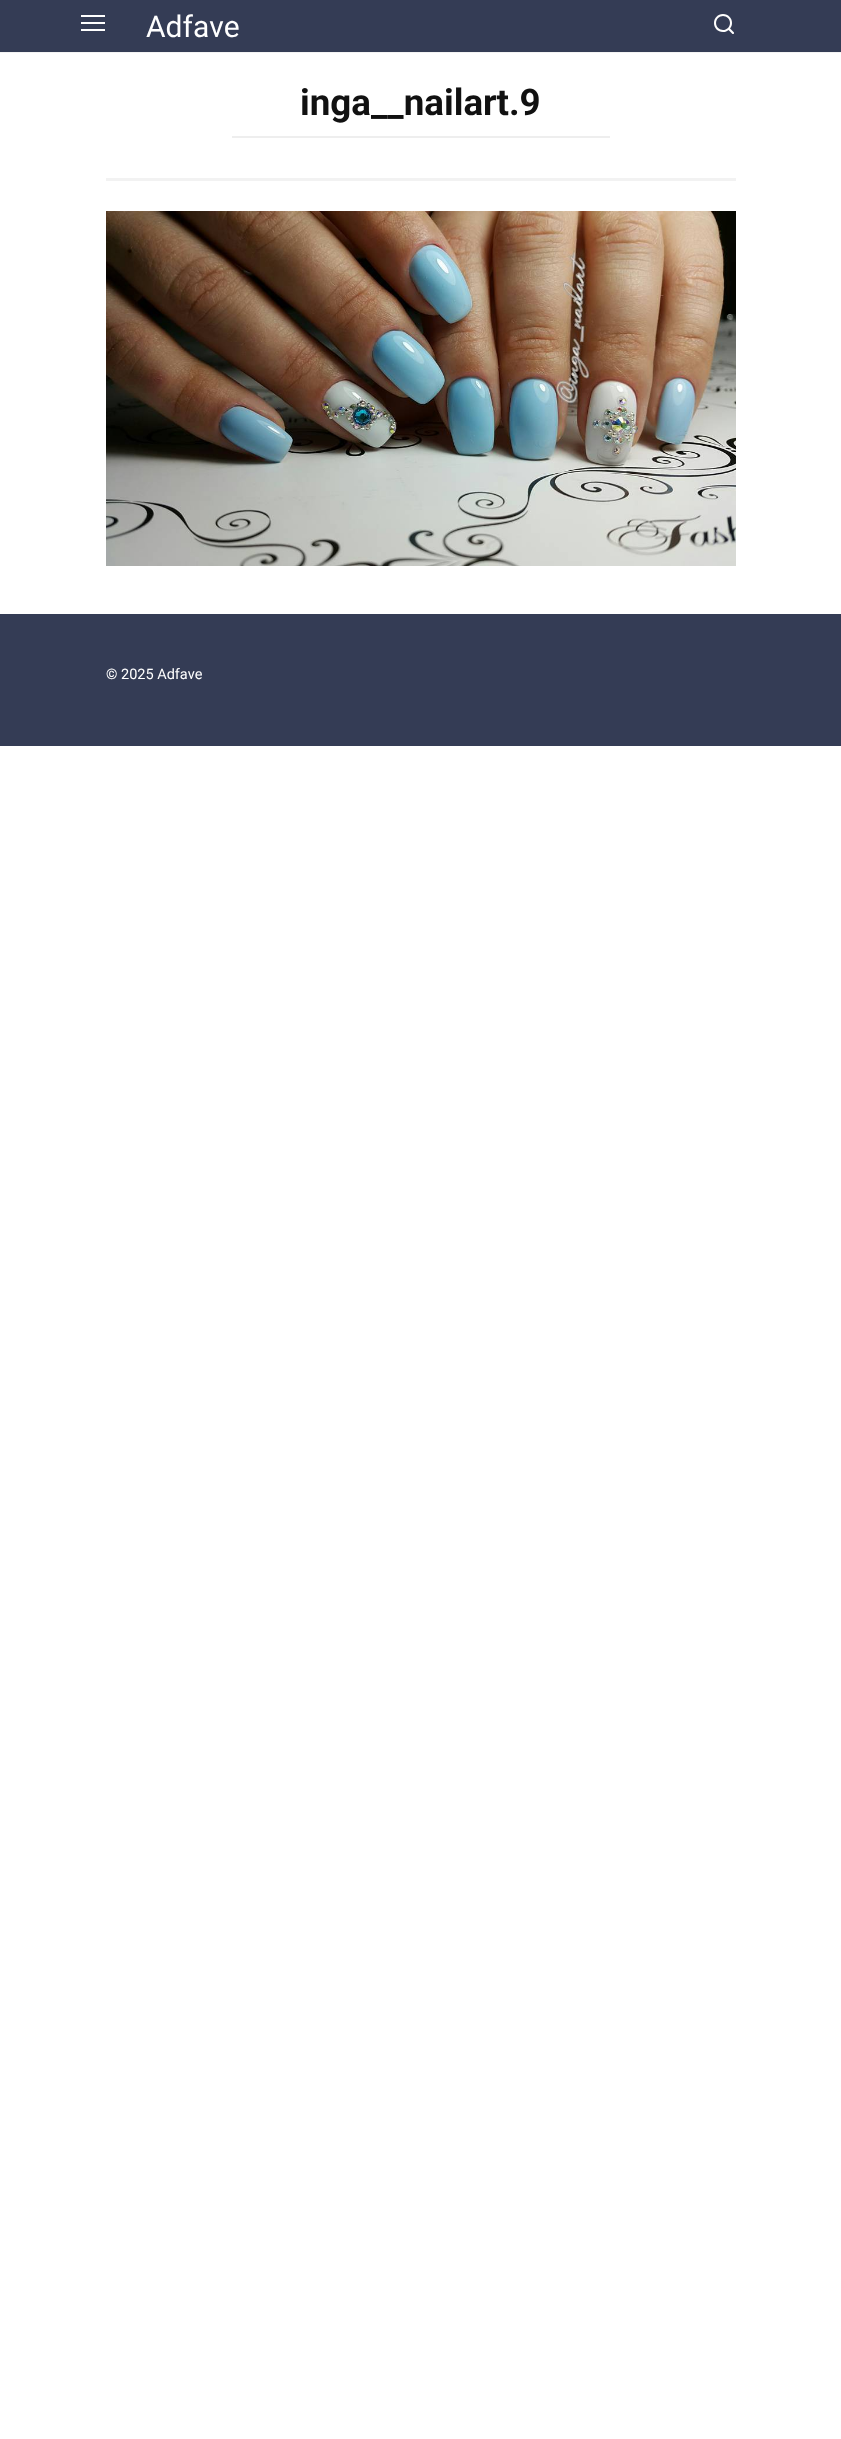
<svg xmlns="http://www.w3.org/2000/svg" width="841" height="2439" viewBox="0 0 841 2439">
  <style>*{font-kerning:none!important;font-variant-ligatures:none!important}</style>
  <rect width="100%" height="100%" fill="#fff"/>
  <path d="M0 0h841v52H0z" fill="#343c55"/>
  <path d="M0 52h841v1H0z" fill="#f3f3f3"/>
  <path d="M81 15h24v2H81z" fill="#fff"/>
  <path d="M81 22h24v2H81z" fill="#fff"/>
  <path d="M81 29h24v2H81z" fill="#fff"/>
  <path d="M232 136h378v2H232z" fill="#eee"/>
  <path d="M106 178h630v3H106z" fill="#f2f2f2"/>
  <image x="106" y="211" width="630" height="355" href="img/1.png"/>
  <path d="M0 614h841v132H0z" fill="#343c55"/>
  <text x="146" y="37" font-family="Roboto" font-size="30" fill="#fff">Adfave</text>
  <text x="712" y="34" font-family="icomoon" font-size="24" fill="#fff">🔍</text>
  <text x="300" y="115" font-family="Roboto" font-size="36.75" font-weight="bold" fill="#111">inga__nailart.9</text>
  <text x="106" y="679" font-family="Roboto" font-size="14.5" fill="#fff">© 2025 Adfave</text>
</svg>
